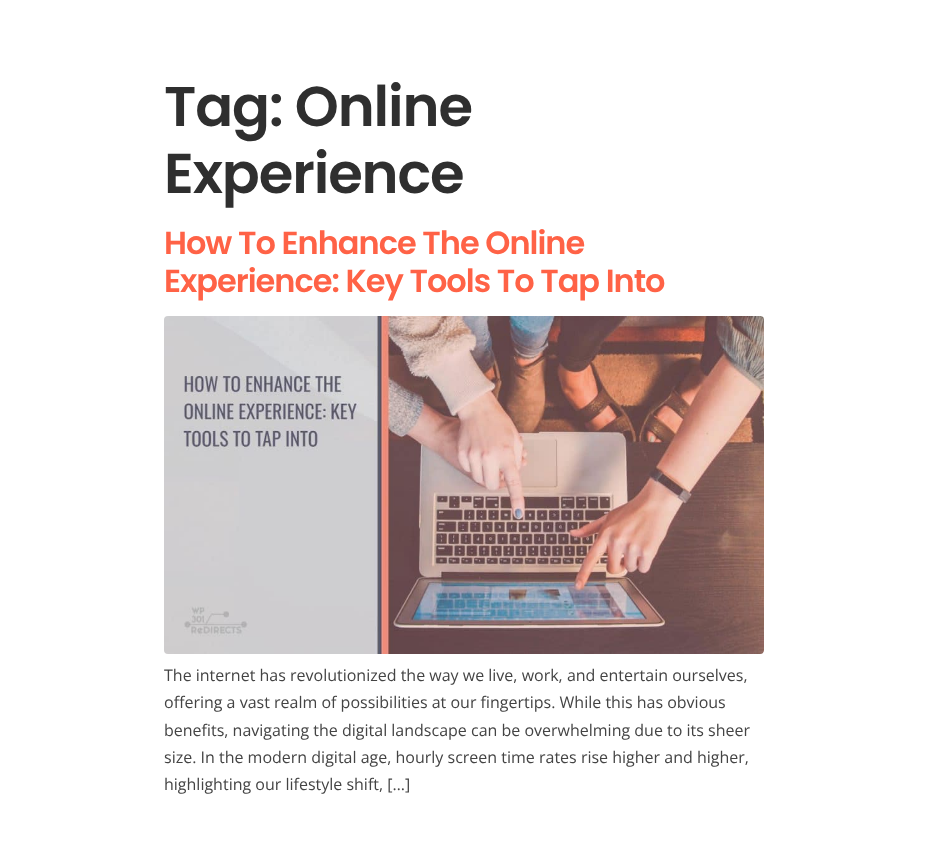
<svg xmlns="http://www.w3.org/2000/svg" width="928" height="845" viewBox="0 0 928 845">
  <rect width="100%" height="100%" fill="#fff"/>
  <image x="164" y="316" width="600" height="338" href="img/1.png"/>
  <g font-family="Poppins" font-size="56" font-weight="600" letter-spacing="-1.1" fill="#2f2f2f">
    <text x="164" y="126">Tag: Online</text>
    <text x="164" y="193">Experience</text>
  </g>
  <g font-family="Poppins" font-size="32" font-weight="600" letter-spacing="-1" fill="#ff6246">
    <text x="164" y="254">How To Enhance The Online</text>
    <text x="164" y="292">Experience: Key Tools To Tap Into</text>
  </g>
  <g font-family="Open Sans" font-size="16" fill="#444">
    <text x="164" y="681">The internet has revolutionized the way we live, work, and entertain ourselves,</text>
    <text x="164" y="708">offering a vast realm of possibilities at our fingertips. While this has obvious</text>
    <text x="164" y="736">benefits, navigating the digital landscape can be overwhelming due to its sheer</text>
    <text x="164" y="763">size. In the modern digital age, hourly screen time rates rise higher and higher,</text>
    <text x="164" y="790">highlighting our lifestyle shift, […]</text>
  </g>
</svg>
